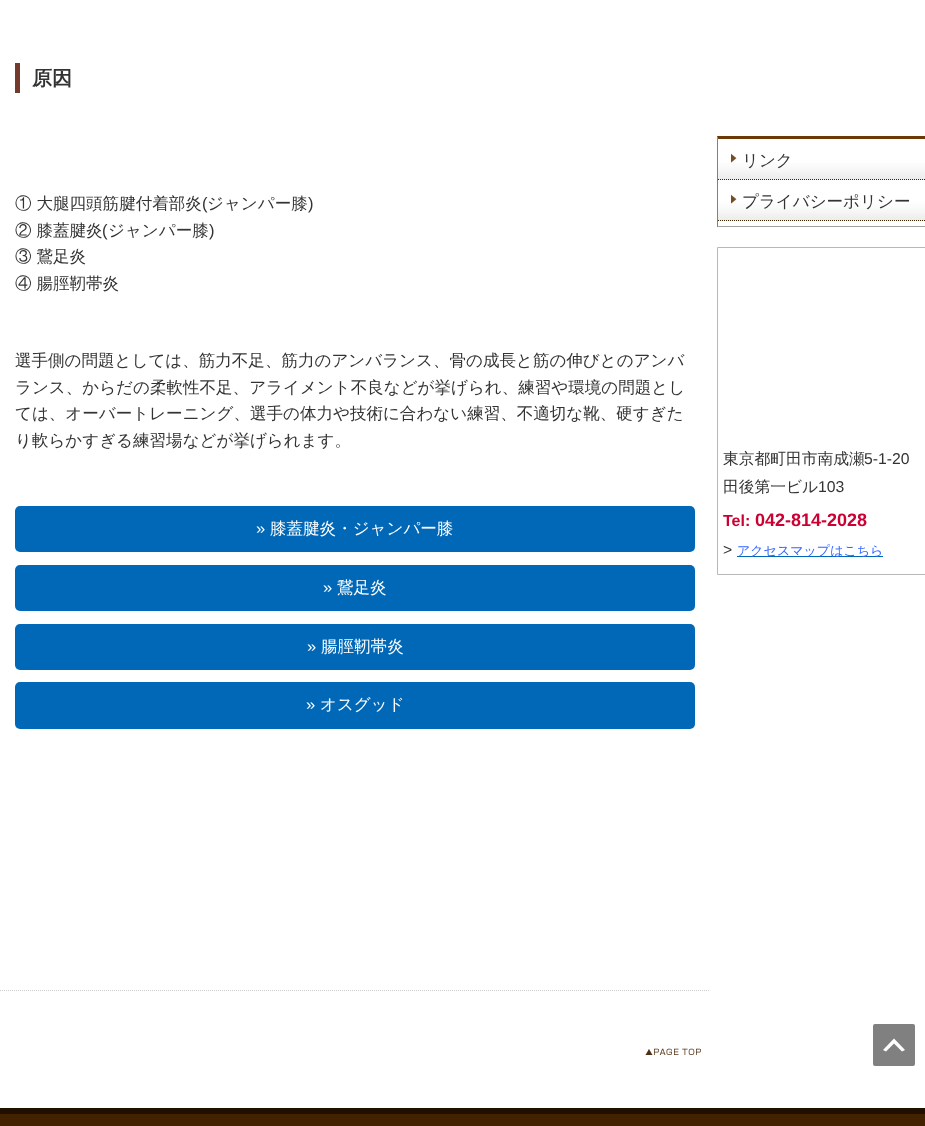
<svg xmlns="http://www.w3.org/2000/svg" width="925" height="1126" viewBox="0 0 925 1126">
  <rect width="100%" height="100%" fill="#fff"/>
  <path d="M15 63h5v30H15z" fill="#743b2d"/>
  <rect x="15" y="506" width="680" height="46" rx="5" fill="#0068b7"/>
  <rect x="15" y="565" width="680" height="46" rx="5" fill="#0068b7"/>
  <rect x="15" y="624" width="680" height="46" rx="5" fill="#0068b7"/>
  <rect x="15" y="682" width="680" height="47" rx="5" fill="#0068b7"/>
  <path d="M0 990.5H710" fill="none" stroke="#ccc" stroke-dasharray="1 1"/>
  <image x="645" y="1048" width="56" height="7" href="img/1.png"/>
  <path d="M717 136H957L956 139H718Z" fill="#6a3906"/>
  <path d="M717 226h208v1H717z" fill="#a1a399"/>
  <path d="M717 227V136L718 139V226Z" fill="#808080"/>
  <image x="718" y="153" width="207" height="27" href="img/2.png"/>
  <path d="M718 179.5H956" fill="none" stroke="#392600" stroke-dasharray="1 1"/>
  <image x="718" y="194" width="207" height="27" href="img/2.png"/>
  <path d="M718 220.5H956" fill="none" stroke="#392600" stroke-dasharray="1 1"/>
  <path d="M717.5 247.5h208v327H717.5z" fill="none" stroke="#bab7b8"/>
  <path d="M737 556h146v1H737z" fill="#0068b7"/>
  <rect x="873" y="1024" width="42" height="42" rx="2" fill="#808080"/>
  <path d="M902 1051.5L894 1043.5L886 1051.5L883 1050L894 1038.5L905 1050Z" fill="#fff"/>
  <path d="M0 1114h925v12H0z" fill="#422200"/>
  <path d="M0 1108h925v6H0z" fill="#1f1000"/>
  <text x="32" y="85" font-family="WenQuanYi Zen Hei" font-size="20" font-weight="bold" fill="#333">原因</text>
  <text x="15" y="209" font-family="WenQuanYi Zen Hei" font-size="16.55" font-weight="500" fill="#333">① 大腿四頭筋腱付着部炎</text>
  <text x="202" y="209" font-family="Liberation Sans" font-size="16.55" fill="#333">(</text>
  <text x="207" y="209" font-family="WenQuanYi Zen Hei" font-size="16.55" font-weight="500" fill="#333">ジャンパー膝</text>
  <text x="308" y="209" font-family="Liberation Sans" font-size="16.55" fill="#333">)</text>
  <text x="15" y="236" font-family="WenQuanYi Zen Hei" font-size="16.55" font-weight="500" fill="#333">② 膝蓋腱炎</text>
  <text x="102" y="236" font-family="Liberation Sans" font-size="16.55" fill="#333">(</text>
  <text x="108" y="236" font-family="WenQuanYi Zen Hei" font-size="16.55" font-weight="500" fill="#333">ジャンパー膝</text>
  <text x="209" y="236" font-family="Liberation Sans" font-size="16.55" fill="#333">)</text>
  <g font-family="WenQuanYi Zen Hei" font-size="16.55" font-weight="500" fill="#333">
    <text x="15" y="262">③ 鵞足炎</text>
    <text x="15" y="289">④ 腸脛靭帯炎</text>
    <text x="15" y="366">選手側の問題としては、筋力不足、筋力のアンバランス、骨の成長と筋の伸びとのアンバ</text>
    <text x="15" y="393">ランス、からだの柔軟性不足、アライメント不良などが挙げられ、練習や環境の問題とし</text>
    <text x="15" y="419">ては、オーバートレーニング、選手の体力や技術に合わない練習、不適切な靴、硬すぎた</text>
    <text x="15" y="446">り軟らかすぎる練習場などが挙げられます。</text>
  </g>
  <text x="256" y="534" font-family="Liberation Sans" font-size="16.55" fill="#fff">»</text>
  <text x="270" y="534" font-family="WenQuanYi Zen Hei" font-size="16.55" font-weight="500" fill="#fff">膝蓋腱炎・ジャンパー膝</text>
  <text x="323" y="593" font-family="Liberation Sans" font-size="16.55" fill="#fff">»</text>
  <text x="337" y="593" font-family="WenQuanYi Zen Hei" font-size="16.55" font-weight="500" fill="#fff">鵞足炎</text>
  <text x="307" y="652" font-family="Liberation Sans" font-size="16.55" fill="#fff">»</text>
  <text x="321" y="652" font-family="WenQuanYi Zen Hei" font-size="16.55" font-weight="500" fill="#fff">腸脛靭帯炎</text>
  <text x="306" y="710" font-family="Liberation Sans" font-size="16.55" fill="#fff">»</text>
  <text x="320" y="710" font-family="WenQuanYi Zen Hei" font-size="16.55" font-weight="500" fill="#fff">オスグッド</text>
  <g font-family="WenQuanYi Zen Hei" font-size="16.55" font-weight="500" fill="#333">
    <text x="742" y="166">リンク</text>
    <text x="742" y="207">プライバシーポリシー</text>
  </g>
  <text x="723" y="464" font-family="WenQuanYi Zen Hei" font-size="15.75" font-weight="500" fill="#333">東京都町田市南成瀬</text>
  <text x="864" y="464" font-family="Liberation Sans" font-size="15.75" fill="#333">5-1-20</text>
  <text x="723" y="492" font-family="WenQuanYi Zen Hei" font-size="15.75" font-weight="500" fill="#333">田後第一ビル</text>
  <text x="818" y="492" font-family="Liberation Sans" font-size="15.75" fill="#333">103</text>
  <text x="723" y="526" font-family="Liberation Sans" font-size="16" font-weight="bold" fill="#c03">Tel:</text>
  <text x="755" y="526" font-family="Liberation Sans" font-size="18" font-weight="bold" fill="#c03">042-814-2028</text>
  <text x="723" y="555" font-family="Liberation Sans" font-size="15.75" fill="#333">&gt;</text>
  <text x="737" y="555" font-family="WenQuanYi Zen Hei" font-size="13" font-weight="500" fill="#36f">アクセスマップはこちら</text>
</svg>
